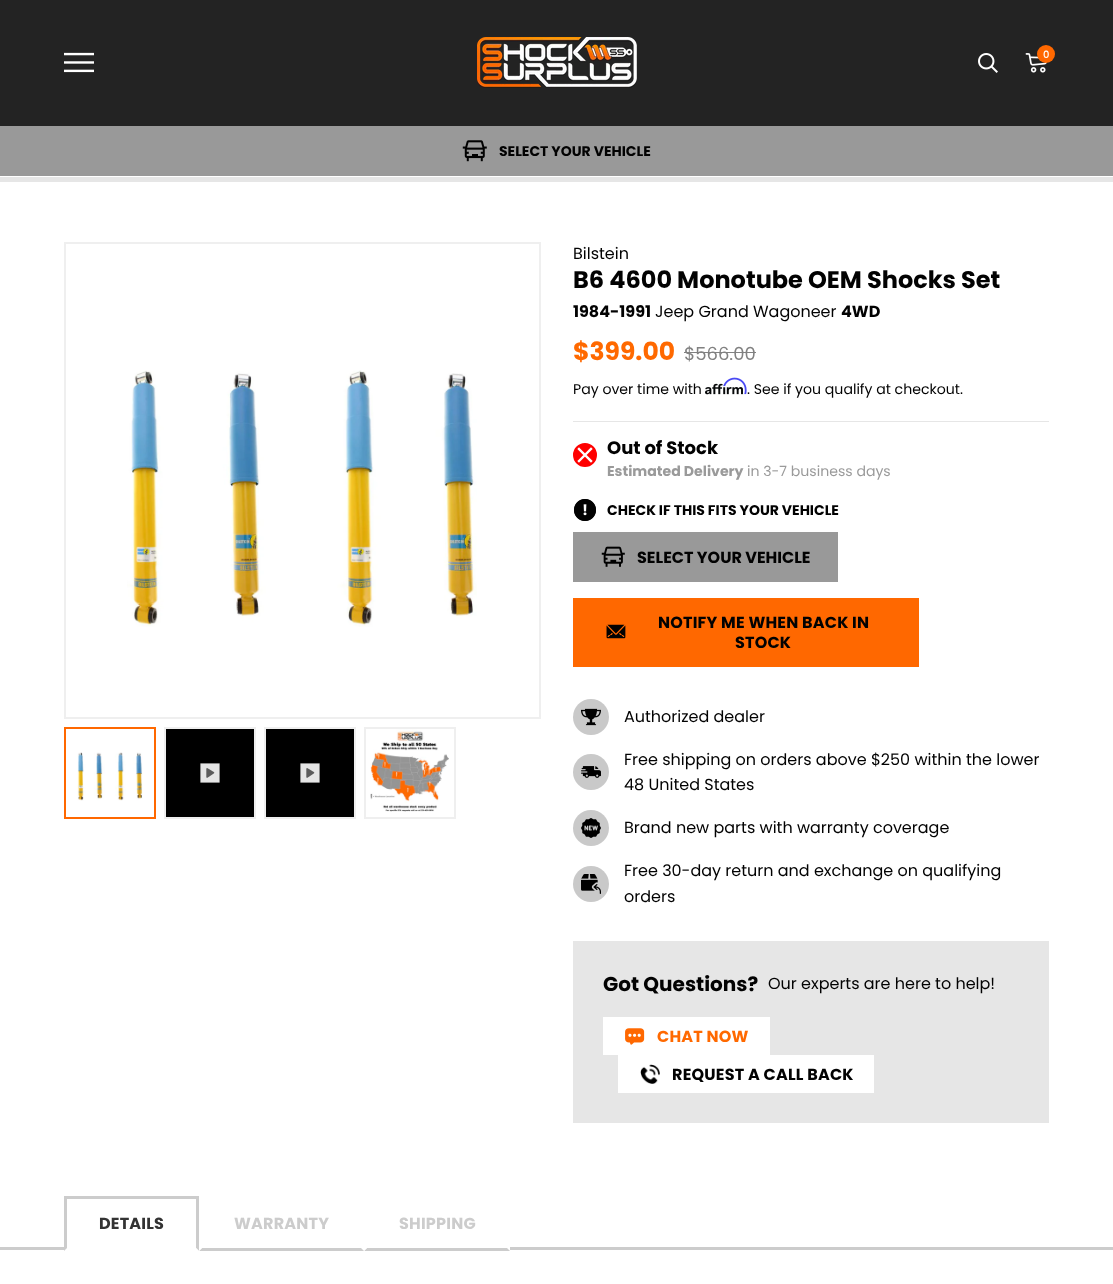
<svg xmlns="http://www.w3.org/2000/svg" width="1113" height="1284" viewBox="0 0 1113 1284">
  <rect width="100%" height="100%" fill="#e6e6e6"/>
  <path d="M0 0h1113v126H0z" fill="#232323"/>
  <path d="M0 176h1113v1H0z" fill="#fff"/>
  <image x="64" y="52" width="30" height="21" href="img/1.png"/>
  <image x="477" y="37" width="160" height="51" href="img/2.png"/>
  <image x="978" y="53" width="20" height="20" href="img/3.png"/>
  <image x="1025" y="53" width="22" height="20" href="img/4.png"/>
  <circle cx="1046" cy="54" r="9" fill="#ff6800"/>
  <path d="M0 126h1113v50H0z" fill="#999"/>
  <image x="462" y="140" width="25" height="22" href="img/5.png"/>
  <path d="M0 182h1113v1102H0z" fill="#fff"/>
  <path d="M65 243h475v475H65z" fill="none" stroke="#efefef" stroke-width="2"/>
  <image x="127" y="370" width="350" height="257" href="img/6.png"/>
  <path d="M65 728h90v90H65z" fill="none" stroke="#ff6800" stroke-width="2"/>
  <image x="77" y="752" width="66" height="49" href="img/7.png"/>
  <path d="M165 728h90v90H165z" fill="#000" stroke="#efefef" stroke-width="2"/>
  <image x="200" y="763" width="20" height="20" href="img/8.png"/>
  <path d="M265 728h90v90H265z" fill="#000" stroke="#efefef" stroke-width="2"/>
  <image x="300" y="763" width="20" height="20" href="img/8.png"/>
  <path d="M365 728h90v90H365z" fill="none" stroke="#efefef" stroke-width="2"/>
  <image x="370" y="729" width="79" height="83" href="img/9.png"/>
  <path d="M684 352h72v1H684z" fill="#818181"/>
  <path d="M573 421h476v1H573z" fill="#e6e6e6"/>
  <image x="705" y="383" width="38" height="12" href="img/11.png"/>
  <image x="723" y="377" width="24" height="18" href="img/10.png"/>
  <circle cx="585" cy="455" r="10.75" fill="#f00" stroke="#f00" stroke-width="2.5"/>
  <path d="M591 449L579 461M579 449L591 461" fill="none" stroke="#fff" stroke-width="2.4" stroke-linecap="square" stroke-linejoin="round"/>
  <image x="574" y="499" width="22" height="22" href="img/12.png"/>
  <path d="M573 532h265v50H573z" fill="#999"/>
  <image x="601" y="546" width="24" height="21" href="img/13.png"/>
  <path d="M573 598h346v69H573z" fill="#ff6800"/>
  <image x="606" y="624" width="20" height="15" href="img/14.png"/>
  <circle cx="591" cy="717" r="18" fill="#c9c9c9"/>
  <image x="581" y="708" width="20" height="18" href="img/15.png"/>
  <circle cx="591" cy="772" r="18" fill="#c9c9c9"/>
  <image x="581" y="766" width="20" height="12" href="img/16.png"/>
  <circle cx="591" cy="828" r="18" fill="#c9c9c9"/>
  <image x="581" y="818" width="20" height="20" href="img/17.png"/>
  <circle cx="591" cy="884" r="18" fill="#c9c9c9"/>
  <image x="581" y="874" width="20" height="20" href="img/18.png"/>
  <path d="M573 941h476v182H573z" fill="#e6e6e6"/>
  <path d="M603 1017h167v38H603z" fill="#fff"/>
  <image x="625" y="1028" width="20" height="17" href="img/19.png"/>
  <path d="M618 1055h256v38H618z" fill="#fff"/>
  <image x="640" y="1064" width="20" height="20" href="img/20.png"/>
  <path d="M0 1247h1113v3H0z" fill="#ccc"/>
  <path d="M64 1247h446v3H64z" fill="#fff"/>
  <path d="M64 1196h135v3H64z" fill="#ccc"/>
  <path d="M199 1196V1251L196 1248V1199Z" fill="#ccc"/>
  <path d="M199 1251H64L67 1248H196Z" fill="#fff"/>
  <path d="M64 1251V1196L67 1199V1248Z" fill="#ccc"/>
  <path d="M364 1251H199L202 1248H361Z" fill="#ccc"/>
  <path d="M199 1251V1196L202 1199V1248Z" fill="#fff"/>
  <path d="M510 1251H364L367 1248H507Z" fill="#ccc"/>
  <path d="M364 1251V1196L367 1199V1248Z" fill="#fff"/>
  <text x="1043" y="58" font-family="Poppins" font-size="10" font-weight="500" fill="#fff">0</text>
  <text x="499" y="156" font-family="Poppins" font-size="14" font-weight="bold" fill="#020202">SELECT YOUR VEHICLE</text>
  <text x="573" y="259" font-family="Poppins" font-size="16" fill="#020202">Bilstein</text>
  <text x="573" y="288" font-family="Poppins" font-size="24" font-weight="bold" fill="#020202">B6 4600 Monotube OEM Shocks Set</text>
  <text x="573" y="317" font-family="Poppins" font-size="16" font-weight="bold" fill="#020202">1984-1991</text>
  <text x="655" y="317" font-family="Poppins" font-size="16" fill="#020202">Jeep Grand Wagoneer</text>
  <text x="841" y="317" font-family="Poppins" font-size="16" font-weight="bold" fill="#020202">4WD</text>
  <text x="573" y="360" font-family="Poppins" font-size="25" font-weight="bold" fill="#ff6900">$399.00</text>
  <text x="684" y="360" font-family="Poppins" font-size="18" fill="#818181">$566.00</text>
  <g font-family="Poppins" font-size="14.1" fill="#020202">
    <text x="573" y="394">Pay over time with</text>
    <text x="747" y="394">. See if you qualify at checkout.</text>
  </g>
  <text x="607" y="454" font-family="Poppins" font-size="18" font-weight="bold" fill="#020202">Out of Stock</text>
  <text x="607" y="476" font-family="Poppins" font-size="14.1" font-weight="bold" fill="#9a9a9a">Estimated Delivery</text>
  <text x="747" y="476" font-family="Poppins" font-size="14.1" fill="#9a9a9a">in 3-7 business days</text>
  <text x="607" y="515" font-family="Poppins" font-size="14" font-weight="bold" fill="#020202">CHECK IF THIS FITS YOUR VEHICLE</text>
  <text x="637" y="563" font-family="Poppins" font-size="16" font-weight="bold" fill="#020202">SELECT YOUR VEHICLE</text>
  <g font-family="Poppins" font-size="16" font-weight="bold" letter-spacing="0.2" fill="#020202">
    <text x="658" y="628">NOTIFY ME WHEN BACK IN</text>
    <text x="735" y="648">STOCK</text>
  </g>
  <g font-family="Poppins" font-size="16" fill="#020202">
    <text x="624" y="722">Authorized dealer</text>
    <text x="624" y="765">Free shipping on orders above $250 within the lower</text>
    <text x="624" y="790">48 United States</text>
    <text x="624" y="833">Brand new parts with warranty coverage</text>
    <text x="624" y="876">Free 30-day return and exchange on qualifying</text>
    <text x="624" y="902">orders</text>
  </g>
  <text x="603" y="991" font-family="Poppins" font-size="20" font-weight="bold" fill="#020202">Got Questions?</text>
  <text x="768" y="989" font-family="Poppins" font-size="16" fill="#020202">Our experts are here to help!</text>
  <text x="657" y="1042" font-family="Poppins" font-size="16" font-weight="bold" letter-spacing="0.2" fill="#ff6900">CHAT NOW</text>
  <text x="672" y="1080" font-family="Poppins" font-size="16" font-weight="bold" letter-spacing="0.2" fill="#020202">REQUEST A CALL BACK</text>
  <text x="99" y="1229" font-family="Poppins" font-size="16" font-weight="bold" letter-spacing="0.2" fill="#333">DETAILS</text>
  <g font-family="Poppins" font-size="16" font-weight="bold" letter-spacing="0.2" fill="#ccc">
    <text x="234" y="1229">WARRANTY</text>
    <text x="399" y="1229">SHIPPING</text>
  </g>
</svg>
